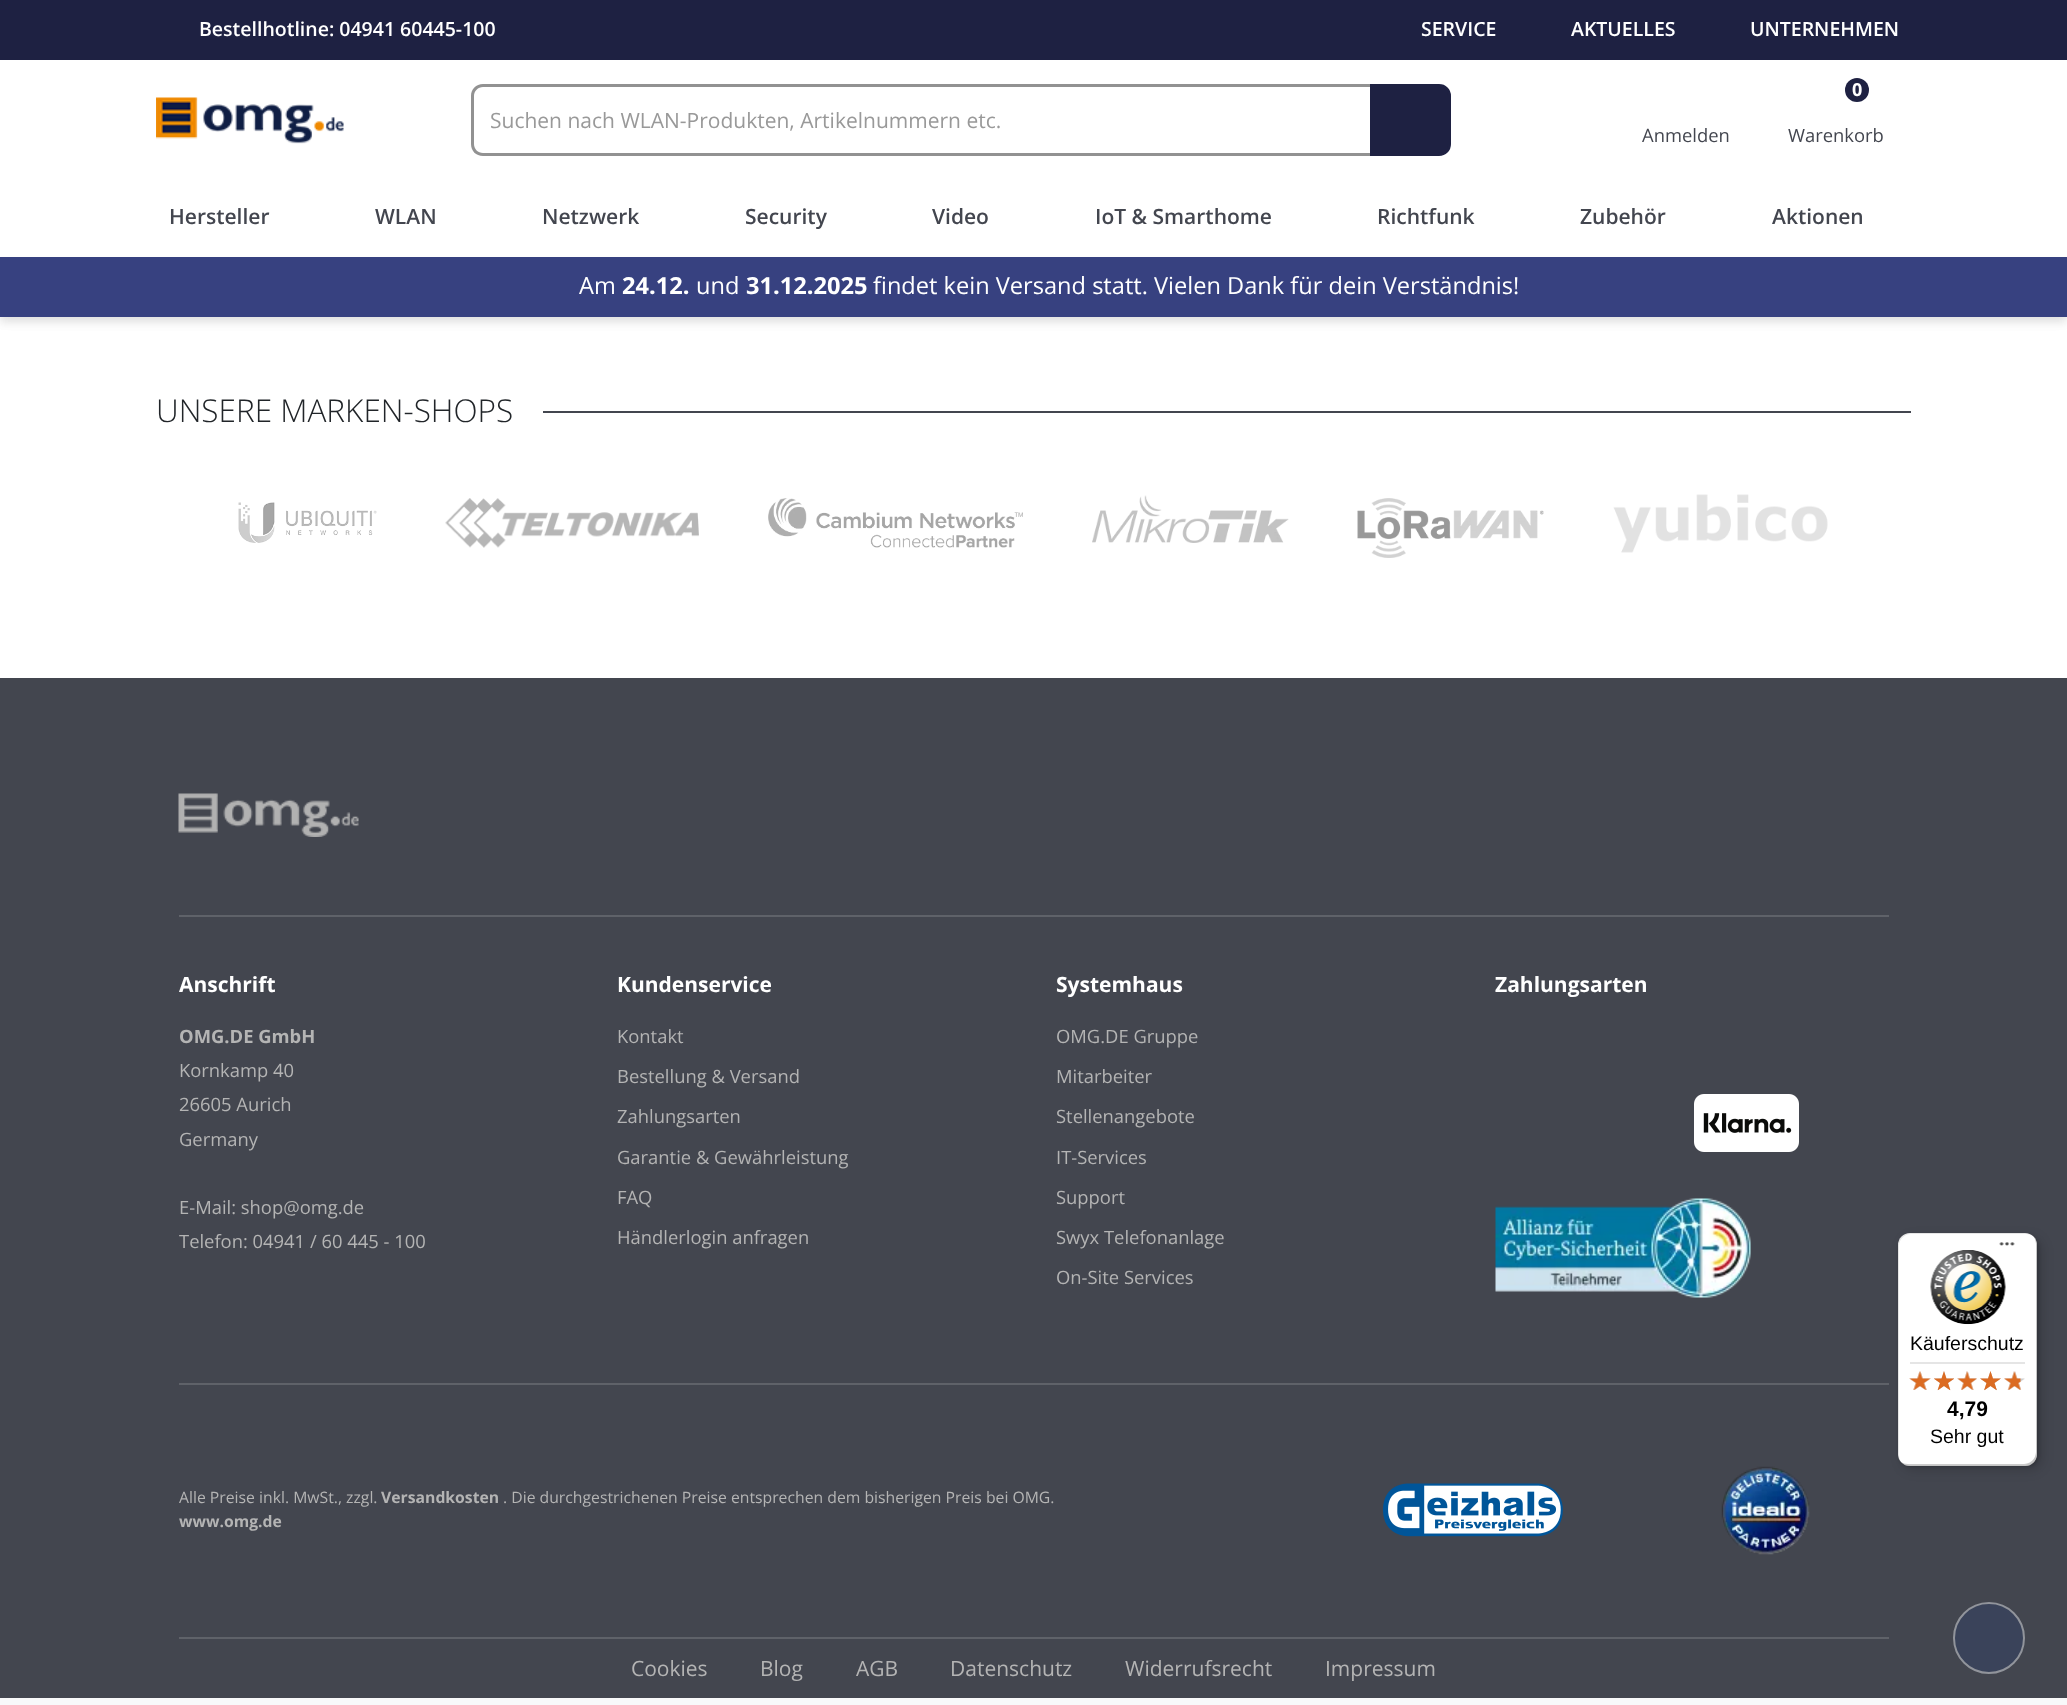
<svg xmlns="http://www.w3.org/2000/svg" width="2067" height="1705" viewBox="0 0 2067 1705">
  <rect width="100%" height="100%" fill="#f8f9fa"/>
  <path d="M0 317h2067v361H0z" fill="#fff"/>
  <path d="M0 63h2067v257H0z" fill="#00000014" filter="blur(6px)"/>
  <path d="M0 0h2067v60H0z" fill="#1e2142"/>
  <path d="M0 60h2067v197H0z" fill="#fff"/>
  <image x="156" y="97" width="188" height="47" href="img/1.png"/>
  <path d="M483 84H1370V156H483C476 156 471 151 471 144V96C471 89 476 84 483 84ZM483 87H1370V153H483C478 153 474 149 474 144V96C474 91 478 87 483 87Z" fill="#929292" fill-rule="evenodd"/>
  <path d="M1371.5 85.5H1439C1445 85.5 1449.5 90 1449.5 96V144C1449.5 150 1445 154.5 1439 154.5H1371.5Z" fill="#1e2142" stroke="#1e2142" stroke-width="3"/>
  <circle cx="1857" cy="90" r="12" fill="#1e2142"/>
  <path d="M0 263h2067v60H0z" fill="#0000000f" filter="blur(4.5px)"/>
  <path d="M0 257h2067v60H0z" fill="#374180"/>
  <path d="M543 411h1368v2H543z" fill="#43464f"/>
  <image x="238" y="502" width="139" height="41" href="img/2.png"/>
  <image x="445" y="498" width="254" height="50" href="img/3.png"/>
  <image x="768" y="498" width="255" height="50" href="img/4.png"/>
  <image x="1092" y="495" width="197" height="48" href="img/5.png"/>
  <image x="1357" y="498" width="187" height="60" href="img/6.png"/>
  <image x="1613" y="494" width="215" height="59" href="img/7.png"/>
  <path d="M0 678h2067v1020H0z" fill="#43464f"/>
  <image x="178" y="793" width="181" height="44" href="img/8.png"/>
  <path d="M179 915h1710v2H179z" fill="#5f6269"/>
  <image x="1694" y="1094" width="105" height="58" href="img/9.png"/>
  <image x="1495" y="1198" width="256" height="100" href="img/10.png"/>
  <path d="M179 1383h1710v2H179z" fill="#5f6269"/>
  <image x="1383" y="1483" width="180" height="54" href="img/11.png"/>
  <image x="1721" y="1466" width="89" height="89" href="img/12.png"/>
  <path d="M179 1637h1710v2H179z" fill="#5f6269"/>
  <circle cx="1989" cy="1638" r="35" fill="#3a435a" stroke="#91949b" stroke-width="2"/>
  <rect x="1902" y="1238" width="140" height="232" rx="12" fill="#00000026" filter="blur(6px)"/>
  <rect x="1899" y="1235" width="140" height="232" rx="12" fill="#00000026" filter="blur(1.5px)"/>
  <rect x="1898" y="1233" width="139" height="233" rx="12" fill="#fff"/>
  <path d="M1911 1234H2026C2029 1234 2032 1235 2034 1237C2032 1235 2029 1233 2025 1233H1910C1903 1233 1898 1238 1898 1245V1454C1898 1457 1899 1460 1901 1462C1900 1460 1899 1458 1899 1455V1246C1899 1240 1904 1234 1911 1234Z" fill="#0000001a"/>
  <path d="M1901 1462C1903 1464 1906 1466 1910 1466H2025C2032 1466 2037 1461 2037 1454V1245C2037 1241 2035 1238 2033 1236C2035 1238 2036 1241 2036 1244V1452C2036 1459 2030 1464 2024 1464H1908C1905 1464 1903 1463 1901 1462Z" fill="#00000033"/>
  <path d="M1901 1462C1903 1464 1906 1466 1910 1466H2025C2032 1466 2037 1461 2037 1454V1245C2037 1242 2036 1239 2034 1237C2035 1239 2036 1241 2036 1244V1453C2036 1459 2031 1465 2024 1465H1909C1906 1465 1903 1464 1901 1462Z" fill="#32323233"/>
  <path d="M1901 1462C1903 1464 1906 1466 1910 1466H2025C2032 1466 2037 1461 2037 1454V1245C2037 1241 2035 1238 2033 1236C2035 1238 2036 1241 2036 1244V1453C2036 1459 2031 1465 2024 1465H1909C1906 1465 1903 1464 1901 1462Z" fill="#ffffff4d"/>
  <image x="1999" y="1242" width="16" height="4" href="img/13.png"/>
  <image x="1930" y="1250" width="76" height="75" href="img/14.png"/>
  <path d="M1910 1362h115v2H1910z" fill="#e5e5e5"/>
  <image x="1909" y="1371" width="22" height="19" href="img/15.png"/>
  <image x="1934" y="1371" width="20" height="19" href="img/16.png"/>
  <image x="1957" y="1371" width="20" height="19" href="img/17.png"/>
  <image x="1980" y="1371" width="21" height="19" href="img/18.png"/>
  <image x="2004" y="1371" width="21" height="19" href="img/19.png"/>
  <image x="1909" y="1371" width="22" height="19" href="img/20.png"/>
  <image x="1934" y="1371" width="20" height="20" href="img/21.png"/>
  <image x="1957" y="1371" width="20" height="19" href="img/22.png"/>
  <image x="1980" y="1371" width="21" height="20" href="img/23.png"/>
  <image x="2004" y="1371" width="17" height="19" href="img/24.png"/>
  <g font-family="Open Sans" font-size="19.5" font-weight="600" fill="#fff">
    <text x="199" y="36">Bestellhotline: 04941 60445-100</text>
    <text x="1421" y="36">SERVICE</text>
    <text x="1571" y="36">AKTUELLES</text>
    <text x="1750" y="36">UNTERNEHMEN</text>
  </g>
  <text x="490" y="128" font-family="Open Sans" font-size="21" fill="#999">Suchen nach WLAN-Produkten, Artikelnummern etc.</text>
  <text x="1642" y="142" font-family="Open Sans" font-size="18.4" fill="#43464f">Anmelden</text>
  <text x="1852" y="96" font-family="Open Sans" font-size="18" font-weight="bold" fill="#fff">0</text>
  <text x="1788" y="142" font-family="Open Sans" font-size="18.4" fill="#43464f">Warenkorb</text>
  <g font-family="Open Sans" font-size="21" font-weight="600" fill="#43464f">
    <text x="169" y="224">Hersteller</text>
    <text x="375" y="224">WLAN</text>
    <text x="542" y="224">Netzwerk</text>
    <text x="745" y="224">Security</text>
    <text x="932" y="224">Video</text>
    <text x="1095" y="224">IoT &amp; Smarthome</text>
    <text x="1377" y="224">Richtfunk</text>
    <text x="1580" y="224">Zubehör</text>
    <text x="1772" y="224">Aktionen</text>
  </g>
  <text x="579" y="294" font-family="Open Sans" font-size="23.6" fill="#fff">Am</text>
  <text x="622" y="294" font-family="Open Sans" font-size="23.6" font-weight="bold" fill="#fff">24.12.</text>
  <text x="696" y="294" font-family="Open Sans" font-size="23.6" fill="#fff">und</text>
  <text x="746" y="294" font-family="Open Sans" font-size="23.6" font-weight="bold" fill="#fff">31.12.2025</text>
  <text x="873" y="294" font-family="Open Sans" font-size="23.6" fill="#fff">findet kein Versand statt. Vielen Dank für dein Verständnis!</text>
  <text x="156" y="422" font-family="Open Sans" font-size="31.5" font-weight="300" fill="#212529">UNSERE MARKEN-SHOPS</text>
  <text x="179" y="992" font-family="Open Sans" font-size="21" font-weight="bold" fill="#fff">Anschrift</text>
  <text x="179" y="1043" font-family="Open Sans" font-size="18.4" font-weight="bold" fill="#b4b4b4">OMG.DE GmbH</text>
  <g font-family="Open Sans" font-size="18.4" fill="#b4b4b4">
    <text x="179" y="1077">Kornkamp 40</text>
    <text x="179" y="1111">26605 Aurich</text>
    <text x="179" y="1146">Germany</text>
    <text x="179" y="1214">E-Mail: shop@omg.de</text>
    <text x="179" y="1248">Telefon: 04941 / 60 445 - 100</text>
  </g>
  <text x="617" y="992" font-family="Open Sans" font-size="21" font-weight="bold" fill="#fff">Kundenservice</text>
  <g font-family="Open Sans" font-size="18.4" fill="#b4b4b4">
    <text x="617" y="1043">Kontakt</text>
    <text x="617" y="1083">Bestellung &amp; Versand</text>
    <text x="617" y="1123">Zahlungsarten</text>
    <text x="617" y="1164">Garantie &amp; Gewährleistung</text>
    <text x="617" y="1204">FAQ</text>
    <text x="617" y="1244">Händlerlogin anfragen</text>
  </g>
  <text x="1056" y="992" font-family="Open Sans" font-size="21" font-weight="bold" fill="#fff">Systemhaus</text>
  <g font-family="Open Sans" font-size="18.4" fill="#b4b4b4">
    <text x="1056" y="1043">OMG.DE Gruppe</text>
    <text x="1056" y="1083">Mitarbeiter</text>
    <text x="1056" y="1123">Stellenangebote</text>
    <text x="1056" y="1164">IT-Services</text>
    <text x="1056" y="1204">Support</text>
    <text x="1056" y="1244">Swyx Telefonanlage</text>
    <text x="1056" y="1284">On-Site Services</text>
  </g>
  <text x="1495" y="992" font-family="Open Sans" font-size="21" font-weight="bold" fill="#fff">Zahlungsarten</text>
  <text x="179" y="1503" font-family="Open Sans" font-size="15.75" fill="#b4b4b4">Alle Preise inkl. MwSt., zzgl.</text>
  <text x="381" y="1503" font-family="Open Sans" font-size="15.75" font-weight="bold" fill="#b4b4b4">Versandkosten</text>
  <text x="503" y="1503" font-family="Open Sans" font-size="15.75" fill="#b4b4b4">. Die durchgestrichenen Preise entsprechen dem bisherigen Preis bei OMG.</text>
  <text x="179" y="1527" font-family="Open Sans" font-size="15.75" font-weight="bold" fill="#b4b4b4">www.omg.de</text>
  <g font-family="Open Sans" font-size="21" fill="#b4b4b4">
    <text x="631" y="1676">Cookies</text>
    <text x="760" y="1676">Blog</text>
    <text x="856" y="1676">AGB</text>
    <text x="950" y="1676">Datenschutz</text>
    <text x="1125" y="1676">Widerrufsrecht</text>
    <text x="1325" y="1676">Impressum</text>
  </g>
  <text x="1910" y="1350" font-family="Liberation Sans" font-size="19.5" fill="#000">Käuferschutz</text>
  <text x="1947" y="1416" font-family="Liberation Sans" font-size="21" font-weight="bold" fill="#000">4,79</text>
  <text x="1930" y="1443" font-family="Liberation Sans" font-size="19.5" fill="#000">Sehr gut</text>
</svg>
